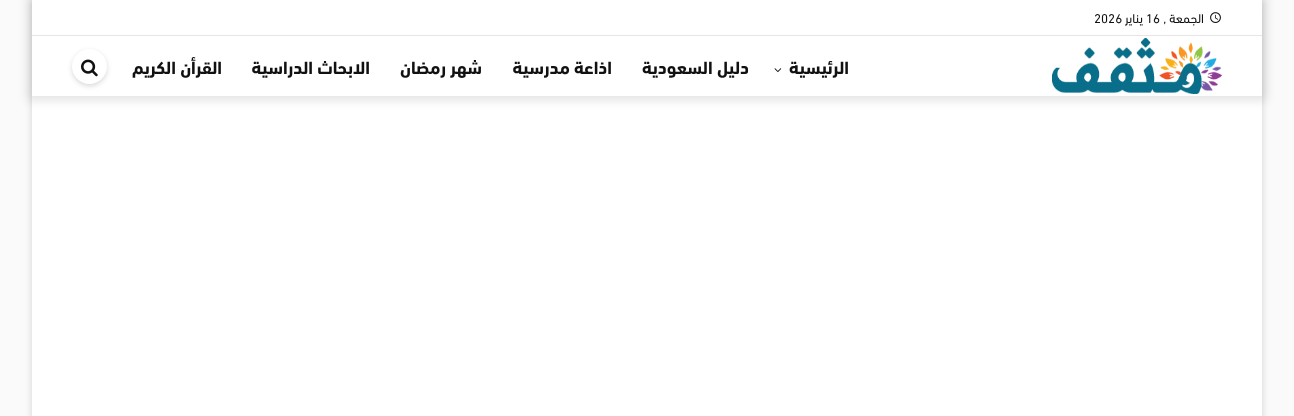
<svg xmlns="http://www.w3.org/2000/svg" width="1294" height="416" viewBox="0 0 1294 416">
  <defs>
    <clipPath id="clip1"><path d="M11 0H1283V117H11ZM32 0H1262V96H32Z" clip-rule="evenodd"/></clipPath>
    <clipPath id="clip2"><path d="M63 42H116V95H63ZM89.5 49C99 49 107 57 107 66.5C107 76 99 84 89.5 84C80 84 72 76 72 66.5C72 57 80 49 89.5 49Z" clip-rule="evenodd"/></clipPath>
  </defs>
  <rect width="100%" height="100%" fill="#fafafa"/>
  <path d="M32 1h1230v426H32z" fill="#ababab80" filter="blur(3.5px)"/>
  <path d="M32 0h1230v416H32z" fill="#fff"/>
  <g clip-path="url(#clip1)">
    <path d="M27 -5h1240v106H27z" fill="#0000001a" filter="blur(5px)"/>
  </g>
  <path d="M32 35h1230v1H32z" fill="#e6e6e6"/>
  <image x="1210" y="12" width="11" height="11" href="img/1.png"/>
  <image x="1052" y="38" width="170" height="56" href="img/2.png"/>
  <image x="774" y="68" width="8" height="5" href="img/3.png"/>
  <g clip-path="url(#clip2)">
    <rect x="72" y="51" width="35" height="35" rx="17.5" fill="#00000026" filter="blur(2.5px)"/>
  </g>
  <image x="81" y="59" width="17" height="18" href="img/4.png"/>
  <text x="1204" y="23" font-family="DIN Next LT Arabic" font-size="13" direction="rtl" fill="#111">الجمعة ,</text>
  <text x="1146" y="23" font-family="DIN Next LT Arabic" font-size="13" fill="#111">16</text>
  <text x="1143" y="23" font-family="DIN Next LT Arabic" font-size="13" direction="rtl" fill="#111">يناير</text>
  <text x="1094" y="23" font-family="DIN Next LT Arabic" font-size="13" fill="#111">2026</text>
  <g font-family="DIN Next LT Arabic" font-size="18" font-weight="bold" direction="rtl" fill="#111">
    <text x="849" y="74">الرئيسية</text>
    <text x="749" y="74">دليل السعودية</text>
    <text x="612" y="74">اذاعة مدرسية</text>
    <text x="482" y="74">شهر رمضان</text>
    <text x="370" y="74">الابحاث الدراسية</text>
    <text x="222" y="74">القرأن الكريم</text>
  </g>
</svg>
